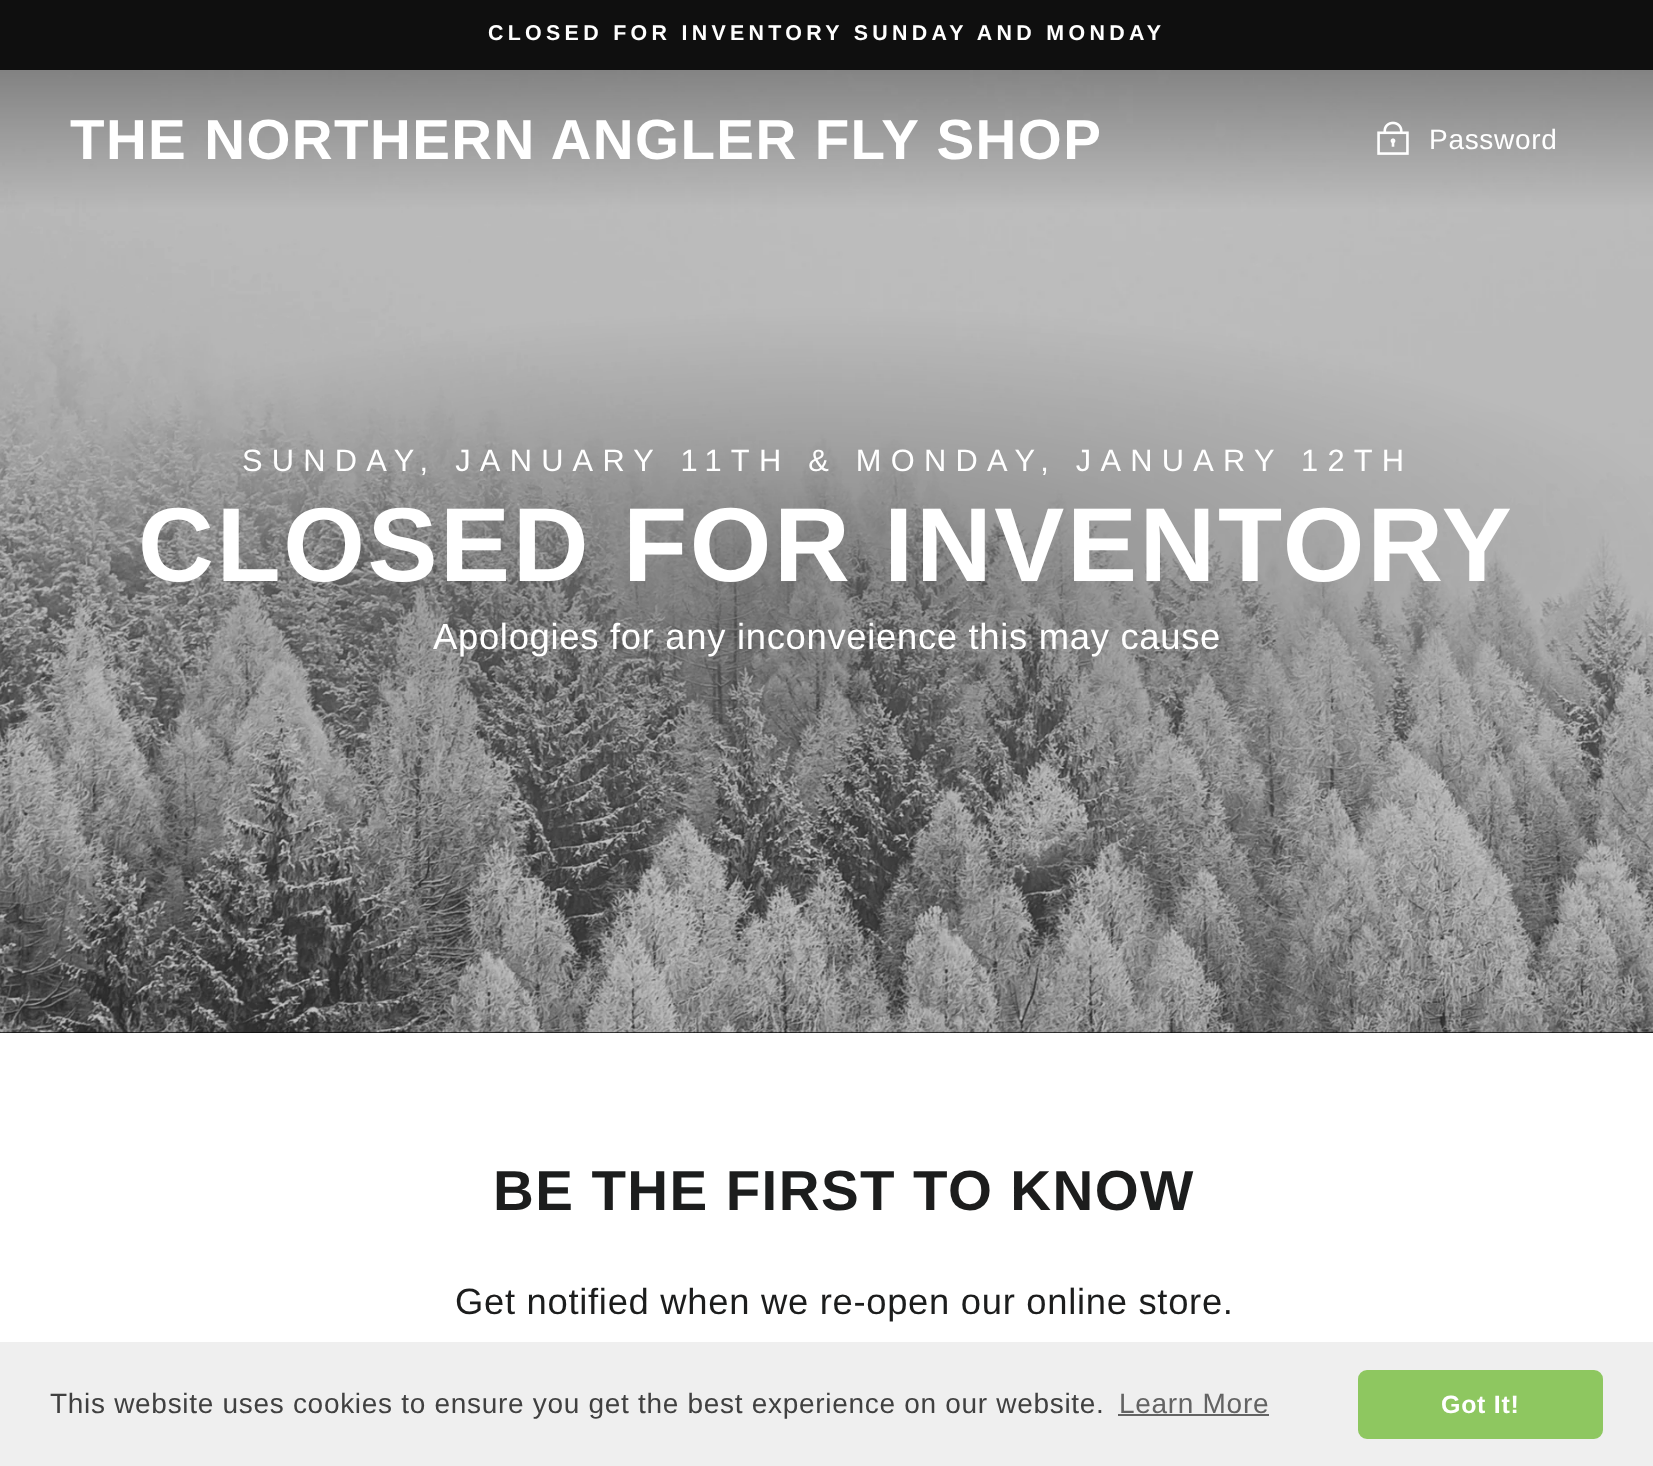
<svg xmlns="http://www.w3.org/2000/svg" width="1653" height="1466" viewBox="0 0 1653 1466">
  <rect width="100%" height="100%" fill="#fff"/>
  <path d="M0 0h1653v70H0z" fill="#0f0f0f"/>
  <path d="M0 1032h1653v1H0z" fill="#0c0c0c"/>
  <image x="0" y="70" width="1653" height="963" href="img/2.png"/>
  <image x="1377" y="121" width="32" height="34" href="img/1.png"/>
  <path d="M0 1342h1653v124H0z" fill="#efefef"/>
  <path d="M1118 1414h151v2H1118z" fill="#636363"/>
  <rect x="1360" y="1372" width="241" height="65" rx="7" fill="#8ec760" stroke="#8ec760" stroke-width="4"/>
  <text x="488" y="40" font-family="Arimo" font-size="21.4" font-weight="bold" letter-spacing="4.3" fill="#fff">CLOSED FOR INVENTORY SUNDAY AND MONDAY</text>
  <text x="70" y="159" font-family="Arimo" font-size="56.5" font-weight="bold" letter-spacing="1.4" fill="#fff">THE NORTHERN ANGLER FLY SHOP</text>
  <text x="1429" y="149" font-family="Arimo" font-size="28" letter-spacing="0.7" fill="#fff">Password</text>
  <text x="242" y="471" font-family="Arimo" font-size="30.8" letter-spacing="9.25" fill="#fff">SUNDAY, JANUARY 11TH &amp; MONDAY, JANUARY 12TH</text>
  <text x="138" y="581" font-family="Arimo" font-size="105" font-weight="bold" letter-spacing="2.6" fill="#fff">CLOSED FOR INVENTORY</text>
  <text x="433" y="649" font-family="Arimo" font-size="36.4" letter-spacing="0.7" fill="#fff">Apologies for any inconveience this may cause</text>
  <text x="493" y="1210" font-family="Arimo" font-size="56.5" font-weight="bold" letter-spacing="1.4" fill="#1c1d1d">BE THE FIRST TO KNOW</text>
  <text x="455" y="1314" font-family="Arimo" font-size="36.4" letter-spacing="0.7" fill="#1c1d1d">Get notified when we re-open our online store.</text>
  <text x="50" y="1413" font-family="Liberation Sans" font-size="28" letter-spacing="0.7" fill="#404040">This website uses cookies to ensure you get the best experience on our website.</text>
  <text x="1119" y="1413" font-family="Liberation Sans" font-size="28" letter-spacing="0.7" fill="#636363">Learn More</text>
  <text x="1441" y="1413" font-family="Liberation Sans" font-size="25" font-weight="bold" letter-spacing="0.7" fill="#fff">Got It!</text>
</svg>
